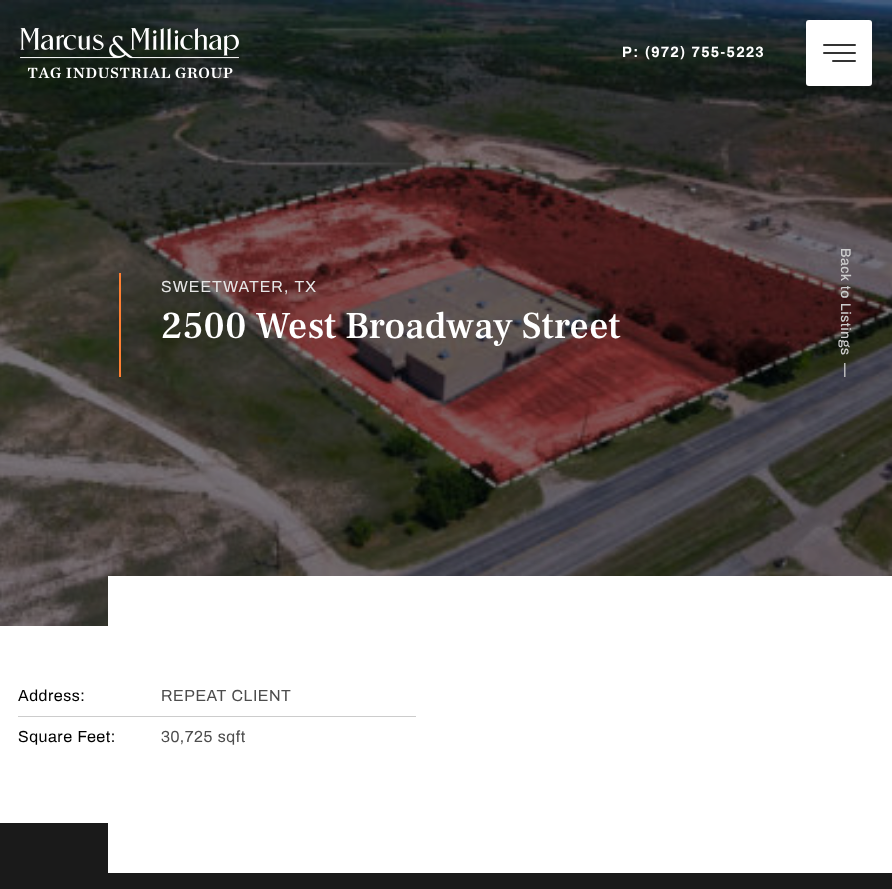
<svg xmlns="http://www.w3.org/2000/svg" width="892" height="889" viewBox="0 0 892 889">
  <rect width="100%" height="100%" fill="#fff"/>
  <image x="0" y="0" width="892" height="626" href="img/2.png"/>
  <image x="20" y="28" width="219" height="50" href="img/1.png"/>
  <rect x="806" y="20" width="66" height="66" rx="3" fill="#fff"/>
  <rect x="823" y="44" width="33" height="2" rx="1" fill="#333"/>
  <rect x="823" y="52" width="33" height="2" rx="1" fill="#333"/>
  <rect x="832" y="60" width="24" height="2" rx="1" fill="#333"/>
  <path d="M119 273h2v104H119z" fill="#ff7f32"/>
  <path d="M108 576h784v50H108z" fill="#fff"/>
  <path d="M18 716h398v1H18z" fill="#ccc"/>
  <path d="M0 823h892v66H0z" fill="#1a1a1a"/>
  <path d="M108 823h784v50H108z" fill="#fff"/>
  <text x="622" y="57" font-family="Archivo" font-size="15" font-weight="bold" letter-spacing="1.25" fill="#fff">P: (972) 755-5223</text>
  <text x="161" y="292" font-family="Archivo" font-size="16" letter-spacing="1" fill="#e6e6e6">SWEETWATER, TX</text>
  <text x="161" y="338" font-family="Frank Ruhl Libre" font-size="38" font-weight="500" fill="#fff">2500 West Broadway Street</text>
  <text x="841" y="248" transform="rotate(90 841 248)" font-family="Archivo" font-size="14" font-weight="500" letter-spacing="0.4" fill="#ccc">Back to Listings</text>
  <text x="841" y="363" transform="rotate(90 841 363)" font-family="Archivo" font-size="14" font-weight="600" letter-spacing="0.4" fill="#ccc">—</text>
  <text x="18" y="701" font-family="Archivo" font-size="16" letter-spacing="0.5" fill="#000">Address:</text>
  <text x="161" y="701" font-family="Archivo" font-size="16" letter-spacing="0.5" fill="#4d4d4d">REPEAT CLIENT</text>
  <text x="18" y="742" font-family="Archivo" font-size="16" letter-spacing="0.5" fill="#000">Square Feet:</text>
  <text x="161" y="742" font-family="Archivo" font-size="16" letter-spacing="0.5" fill="#4d4d4d">30,725 sqft</text>
</svg>
